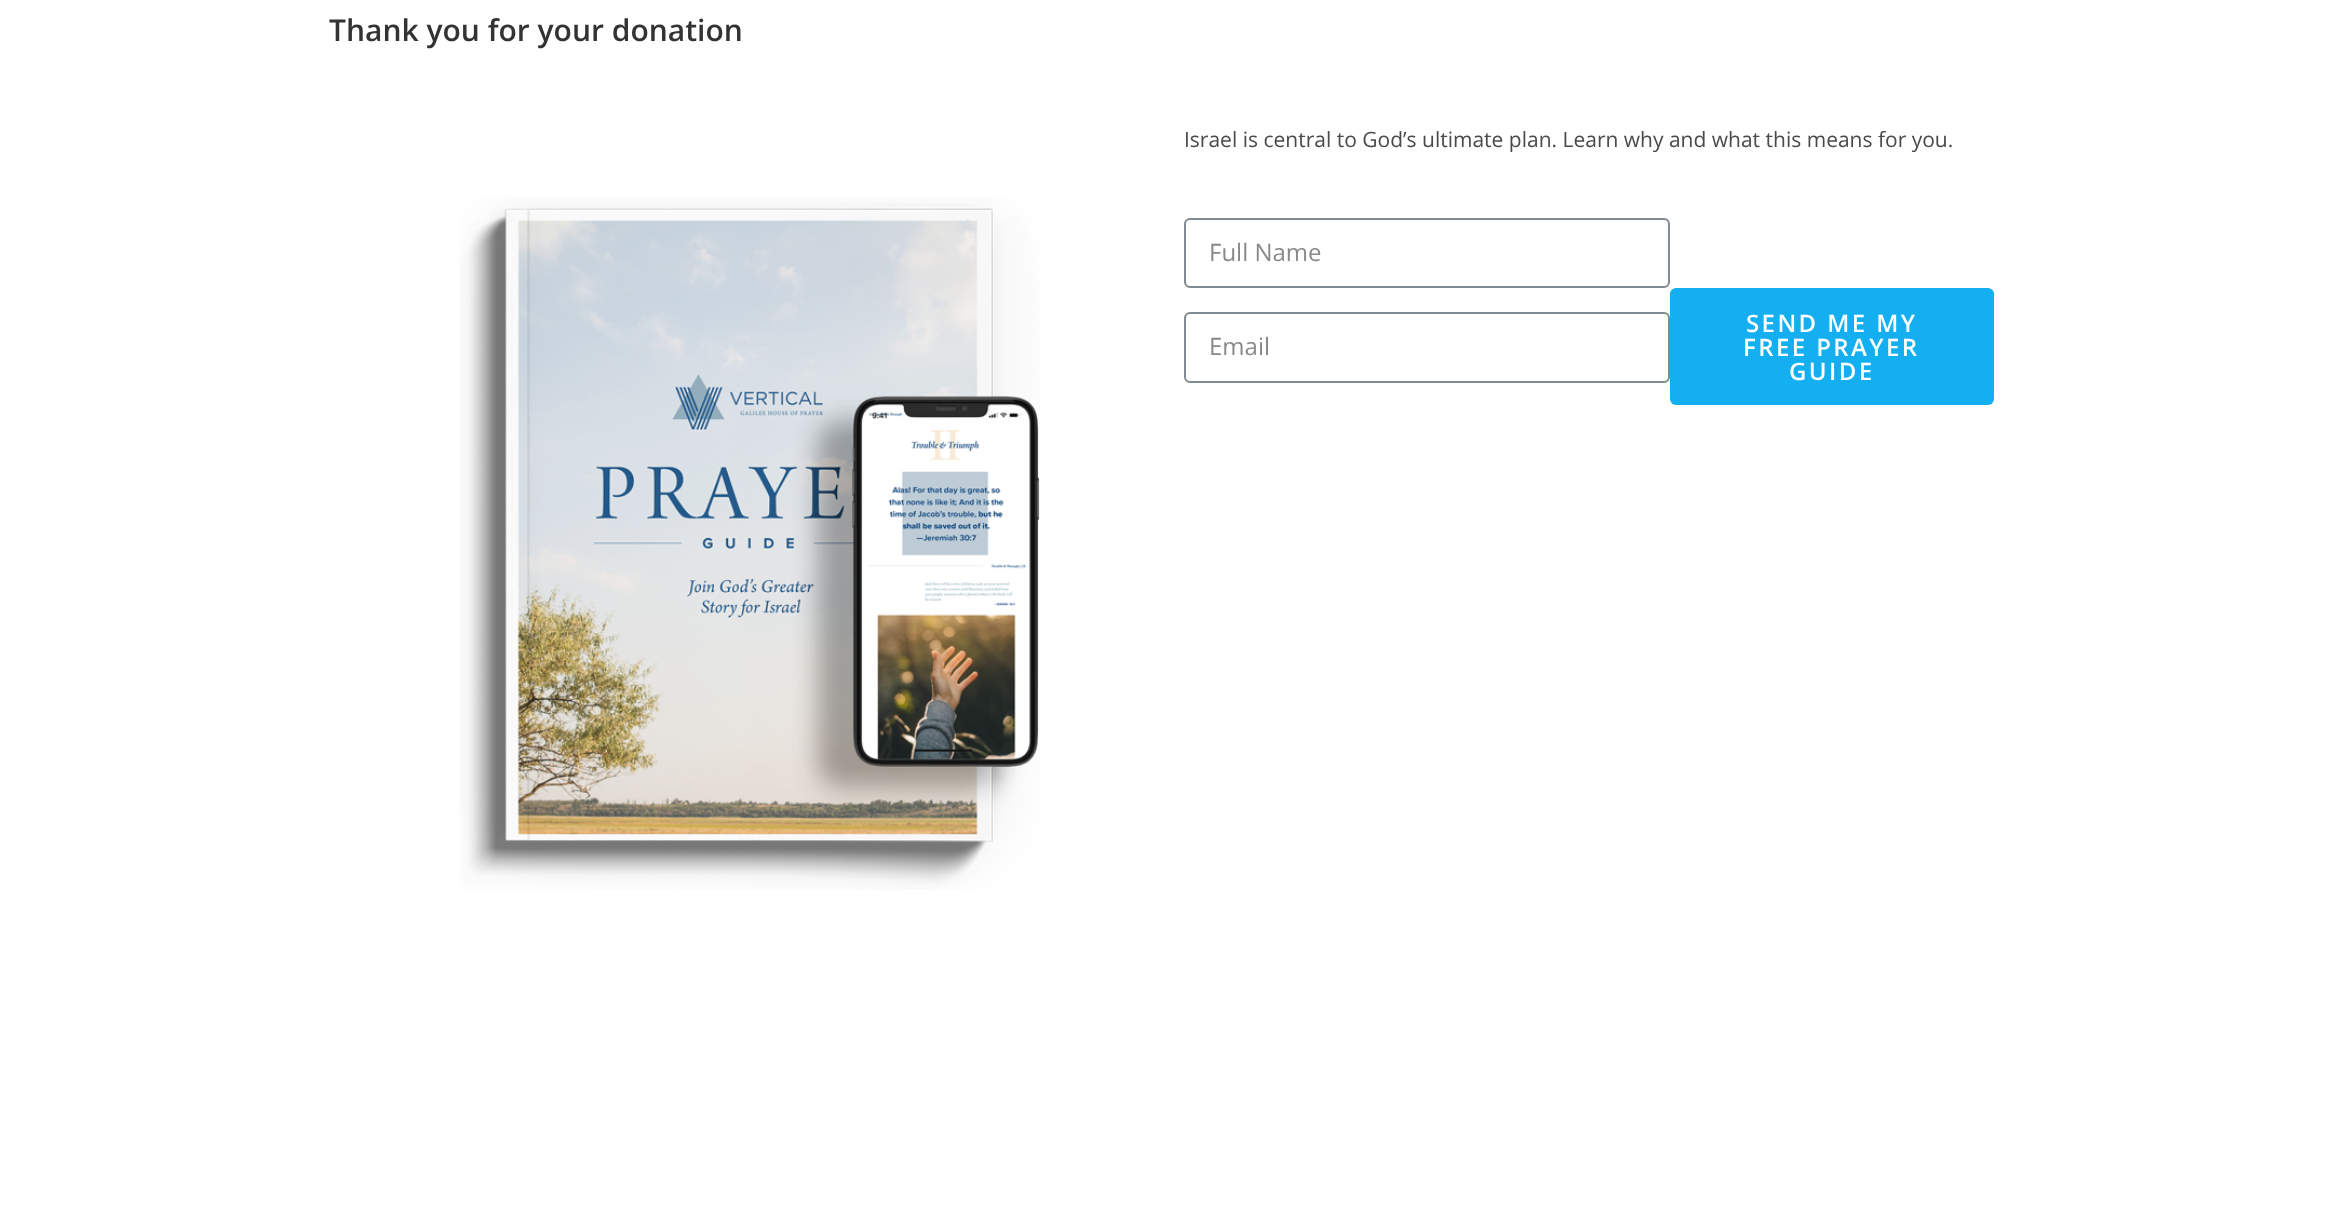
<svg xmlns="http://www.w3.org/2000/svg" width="2337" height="1208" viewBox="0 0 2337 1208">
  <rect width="100%" height="100%" fill="#fff"/>
  <image x="460" y="197" width="580" height="693" href="img/1.png"/>
  <rect x="1185" y="219" width="484" height="68" rx="5" fill="none" stroke="#818a91" stroke-width="2"/>
  <rect x="1185" y="313" width="484" height="69" rx="5" fill="none" stroke="#818a91" stroke-width="2"/>
  <rect x="1670" y="288" width="324" height="117" rx="6" fill="#13aff0"/>
  <text x="329" y="41" font-family="Open Sans" font-size="30" font-weight="600" fill="#333">Thank you for your donation</text>
  <text x="1184" y="147" font-family="Open Sans" font-size="21" fill="#4a4a4a">Israel is central to God’s ultimate plan. Learn why and what this means for you.</text>
  <g font-family="Open Sans" font-size="24" fill="#87898a">
    <text x="1209" y="261">Full Name</text>
    <text x="1209" y="355">Email</text>
  </g>
  <g font-family="Open Sans" font-size="24" font-weight="600" letter-spacing="2.4" fill="#fff">
    <text x="1746" y="332">SEND ME MY</text>
    <text x="1743" y="356">FREE PRAYER</text>
    <text x="1789" y="380">GUIDE</text>
  </g>
</svg>
